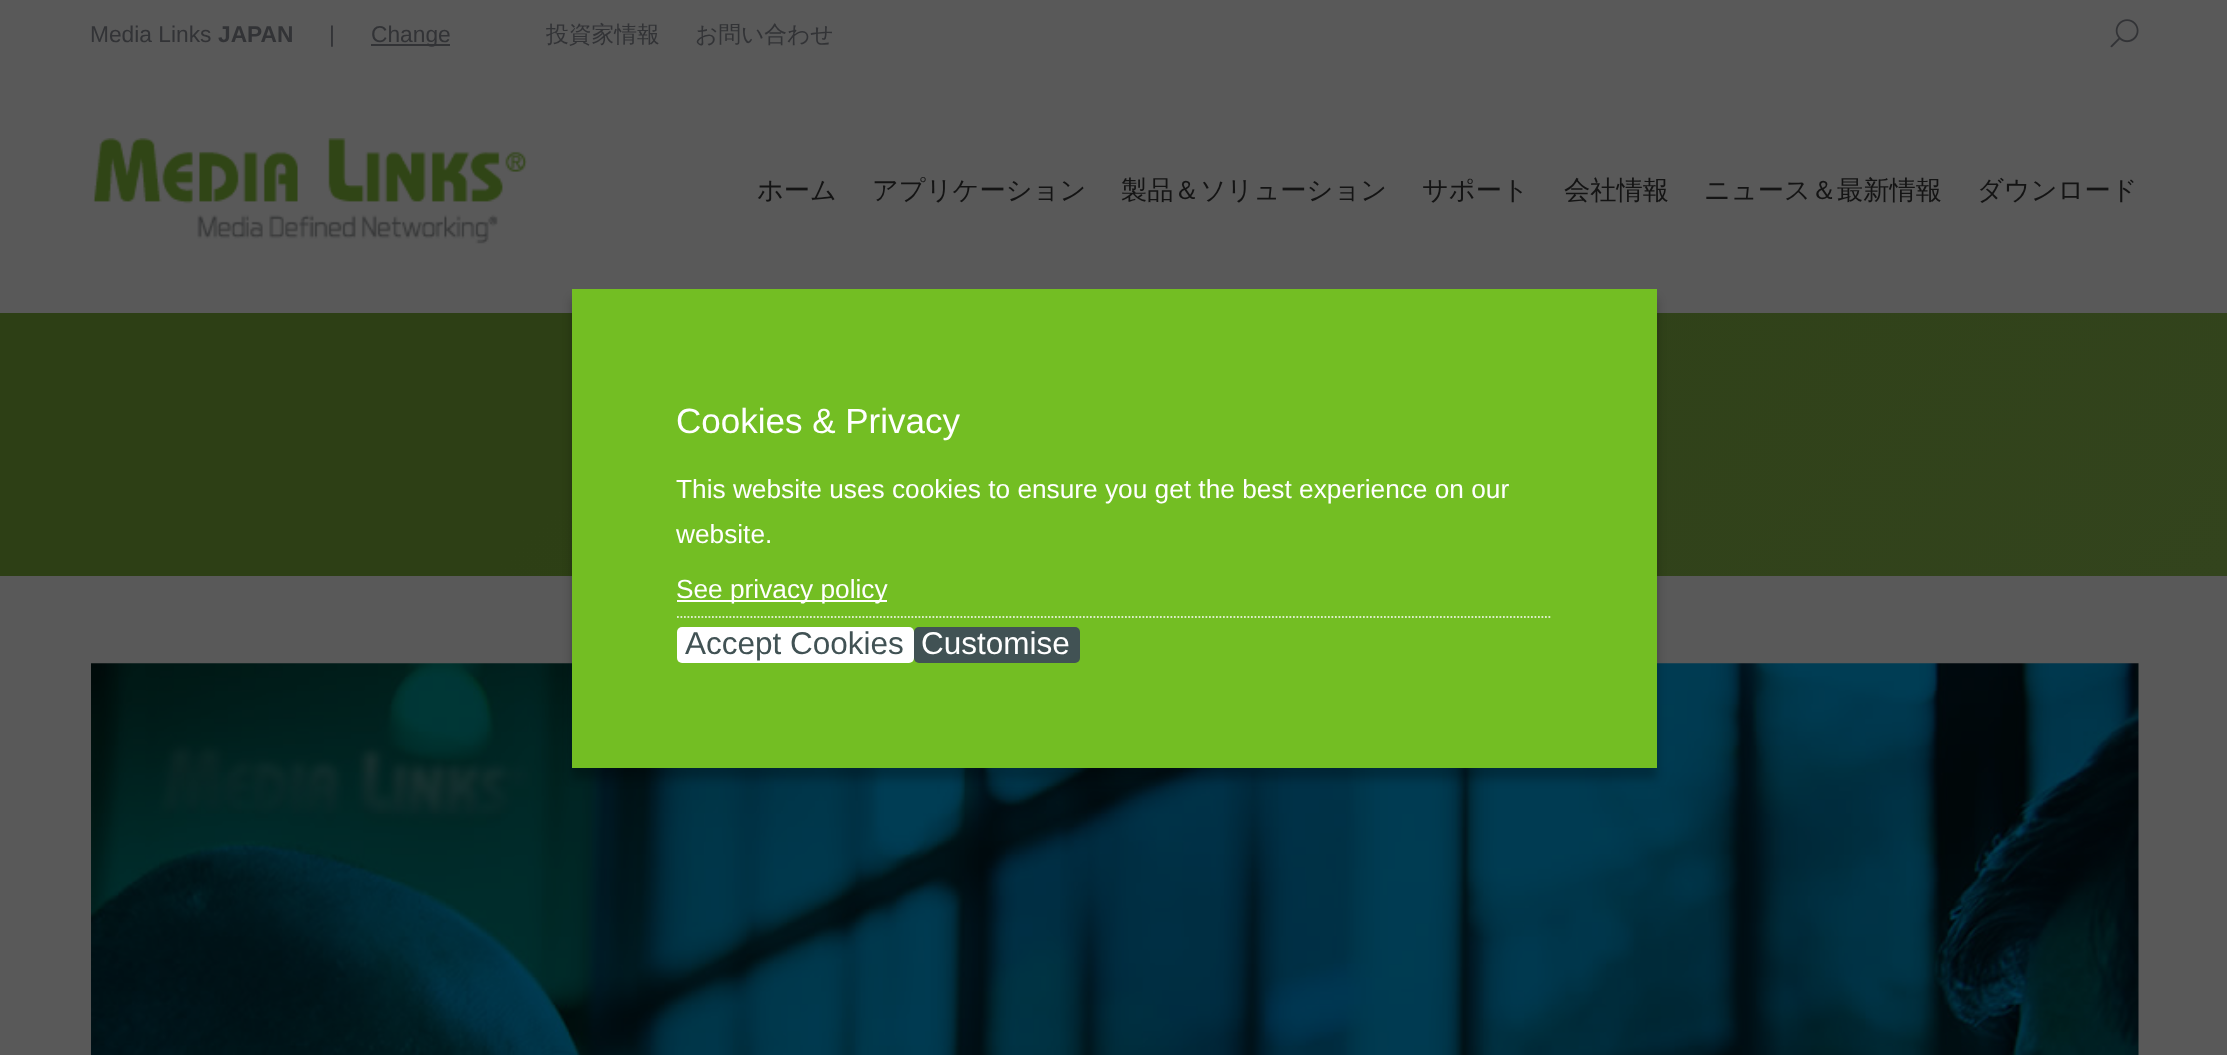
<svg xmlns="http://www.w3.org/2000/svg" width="2227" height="1055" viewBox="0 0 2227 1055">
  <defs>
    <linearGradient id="g1" gradientUnits="userSpaceOnUse" x1="491" y1="-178" x2="1736" y2="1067"><stop offset="0.3" stop-color="#2d3f15"/><stop offset="1" stop-color="#33441d"/></linearGradient>
  </defs>
  <rect width="100%" height="100%" fill="#595959"/>
  <path d="M371 44h79v2H371z" fill="#323336"/>
  <image x="2110" y="19" width="29" height="29" href="img/1.png"/>
  <image x="93" y="138" width="434" height="106" href="img/2.png"/>
  <path d="M0 313h2227v263H0z" fill="url(#g1)"/>
  <image x="91" y="663" width="2048" height="392" href="img/3.png"/>
  <path d="M572 299h1085v480H572z" fill="#00000040" filter="blur(5px)"/>
  <path d="M572 289h1085v479H572z" fill="#73be23"/>
  <path d="M677 617H1552" fill="none" stroke="#dcefc8" stroke-width="1.8" stroke-dasharray="1.75 1.75"/>
  <path d="M677 600h210v2H677z" fill="#fff"/>
  <rect x="677" y="627" width="237" height="36" rx="5" fill="#fff"/>
  <rect x="914" y="627" width="166" height="36" rx="5" fill="#415254"/>
  <text x="90" y="42" font-family="Liberation Sans" font-size="22.75" fill="#323336">Media Links</text>
  <text x="218" y="42" font-family="Liberation Sans" font-size="22.75" font-weight="bold" fill="#323336">JAPAN</text>
  <g font-family="Liberation Sans" font-size="22.75" fill="#323336">
    <text x="329" y="42">|</text>
    <text x="371" y="42">Change</text>
  </g>
  <g font-family="WenQuanYi Zen Hei" font-size="22.75" font-weight="500" fill="#323336">
    <text x="546" y="42">投資家情報</text>
    <text x="695" y="42">お問い合わせ</text>
  </g>
  <g font-family="WenQuanYi Zen Hei" font-size="26.25" font-weight="500" fill="#141414">
    <text x="757" y="199">ホーム</text>
    <text x="872" y="199">アプリケーション</text>
    <text x="1121" y="199">製品＆ソリューション</text>
    <text x="1422" y="199">サポート</text>
    <text x="1564" y="199">会社情報</text>
    <text x="1704" y="199">ニュース＆最新情報</text>
    <text x="1977" y="199">ダウンロード</text>
  </g>
  <text x="676" y="433" font-family="Liberation Sans" font-size="35" fill="#fff">Cookies &amp; Privacy</text>
  <g font-family="Liberation Sans" font-size="26.25" fill="#fff">
    <text x="676" y="498">This website uses cookies to ensure you get the best experience on our</text>
    <text x="676" y="543">website.</text>
    <text x="676" y="598">See privacy policy</text>
  </g>
  <text x="685" y="654" font-family="Liberation Sans" font-size="31.5" fill="#415254">Accept Cookies</text>
  <text x="921" y="654" font-family="Liberation Sans" font-size="31.5" fill="#fff">Customise</text>
</svg>
